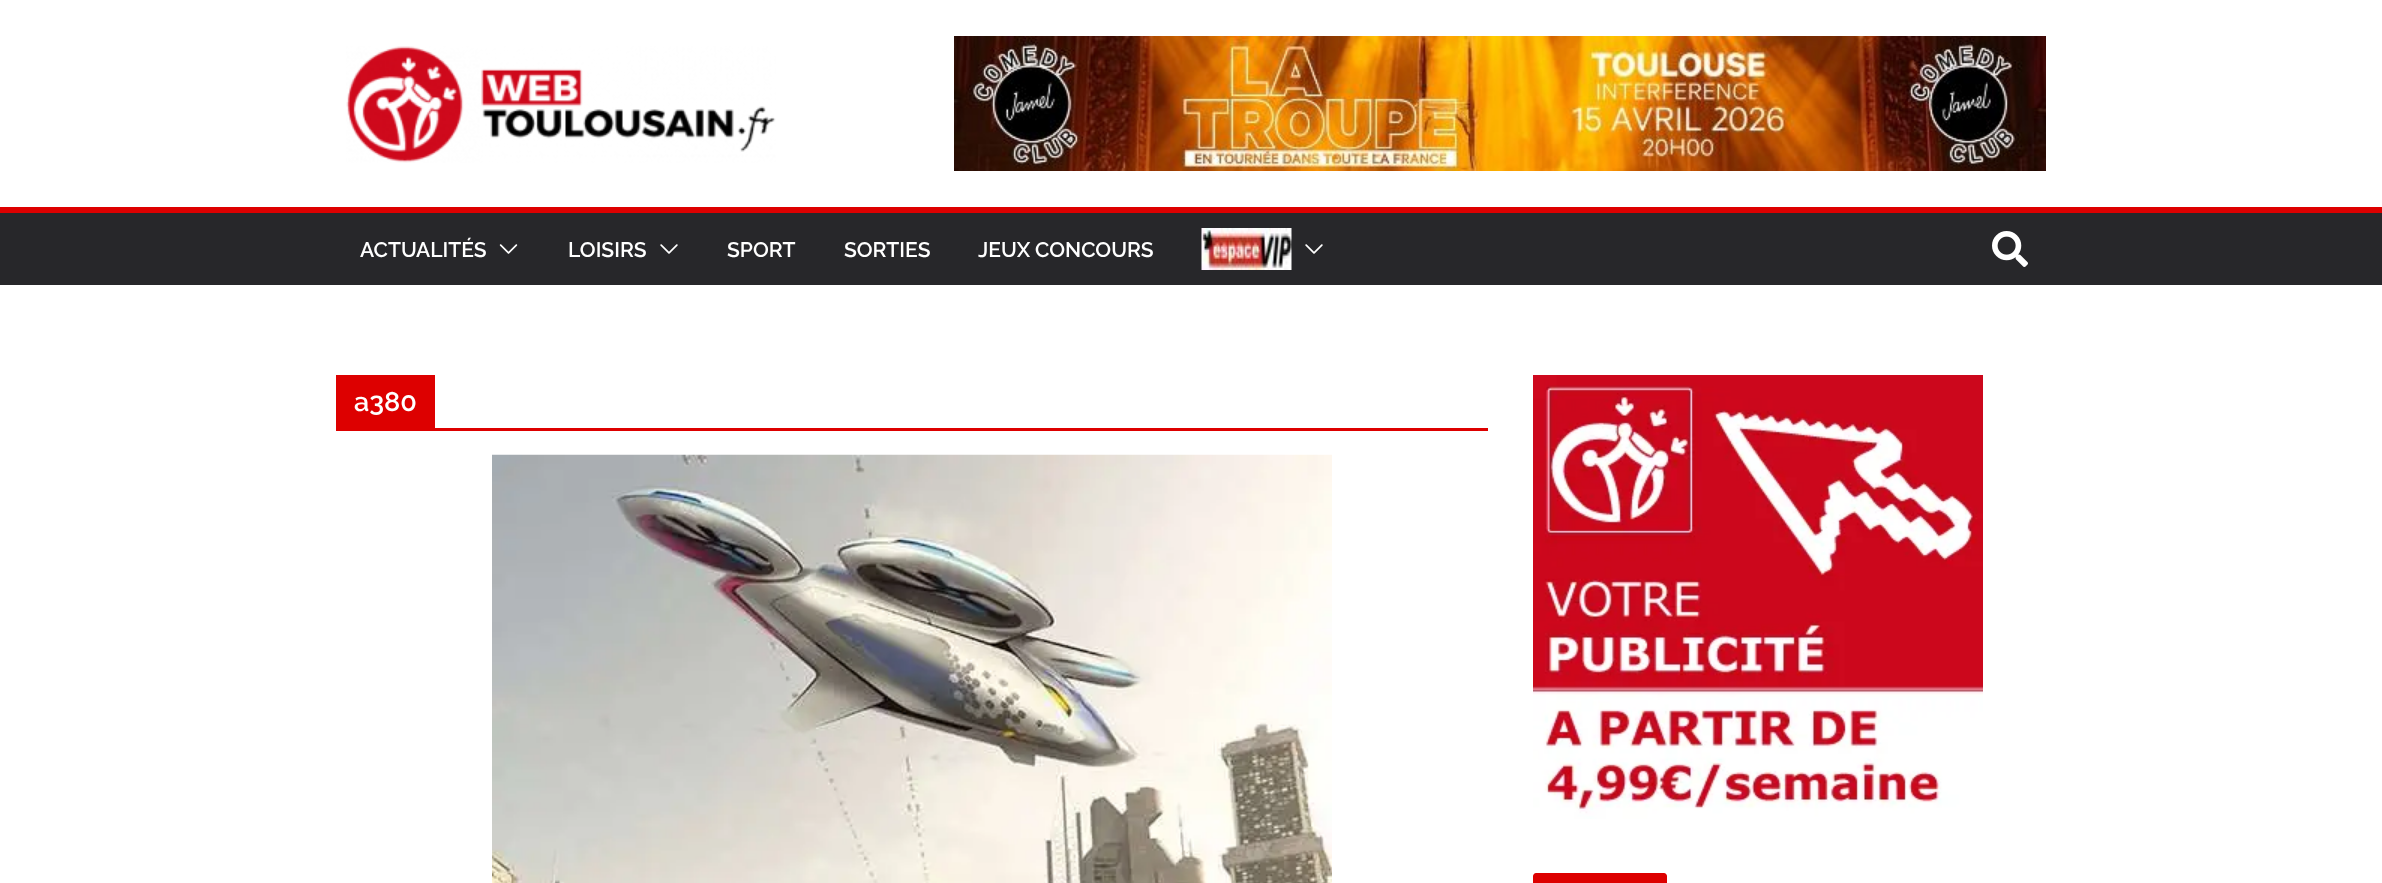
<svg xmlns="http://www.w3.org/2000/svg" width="2382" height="883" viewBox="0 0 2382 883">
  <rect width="100%" height="100%" fill="#fff"/>
  <image x="346" y="46" width="430" height="117" href="img/1.png"/>
  <image x="954" y="36" width="1092" height="135" href="img/2.png"/>
  <path d="M0 213h2382v72H0z" fill="#27272a"/>
  <path d="M0 207h2382v6H0z" fill="#d00"/>
  <image x="499" y="244" width="19" height="10" href="img/3.png"/>
  <image x="660" y="244" width="18" height="10" href="img/4.png"/>
  <image x="1201" y="228" width="91" height="42" href="img/5.png"/>
  <image x="1305" y="244" width="18" height="10" href="img/4.png"/>
  <image x="1992" y="231" width="36" height="36" href="img/6.png"/>
  <path d="M336 428h1152v3H336z" fill="#d00"/>
  <path d="M336 375h99v53H336z" fill="#d00"/>
  <image x="492" y="454" width="840" height="429" href="img/7.png"/>
  <image x="1533" y="375" width="450" height="444" href="img/8.png"/>
  <path d="M1536 873H1664C1665.5 873 1667 874.5 1667 876V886H1533V876C1533 874.5 1534.5 873 1536 873Z" fill="#d00"/>
  <g font-family="Raleway" font-size="21" font-weight="600" fill="#fff">
    <text x="360" y="257">ACTUALITÉS</text>
    <text x="568" y="257">LOISIRS</text>
    <text x="727" y="257">SPORT</text>
    <text x="844" y="257">SORTIES</text>
    <text x="978" y="257">JEUX CONCOURS</text>
  </g>
  <text x="354" y="411" font-family="Raleway" font-size="27" font-weight="600" fill="#fff">a380</text>
</svg>
